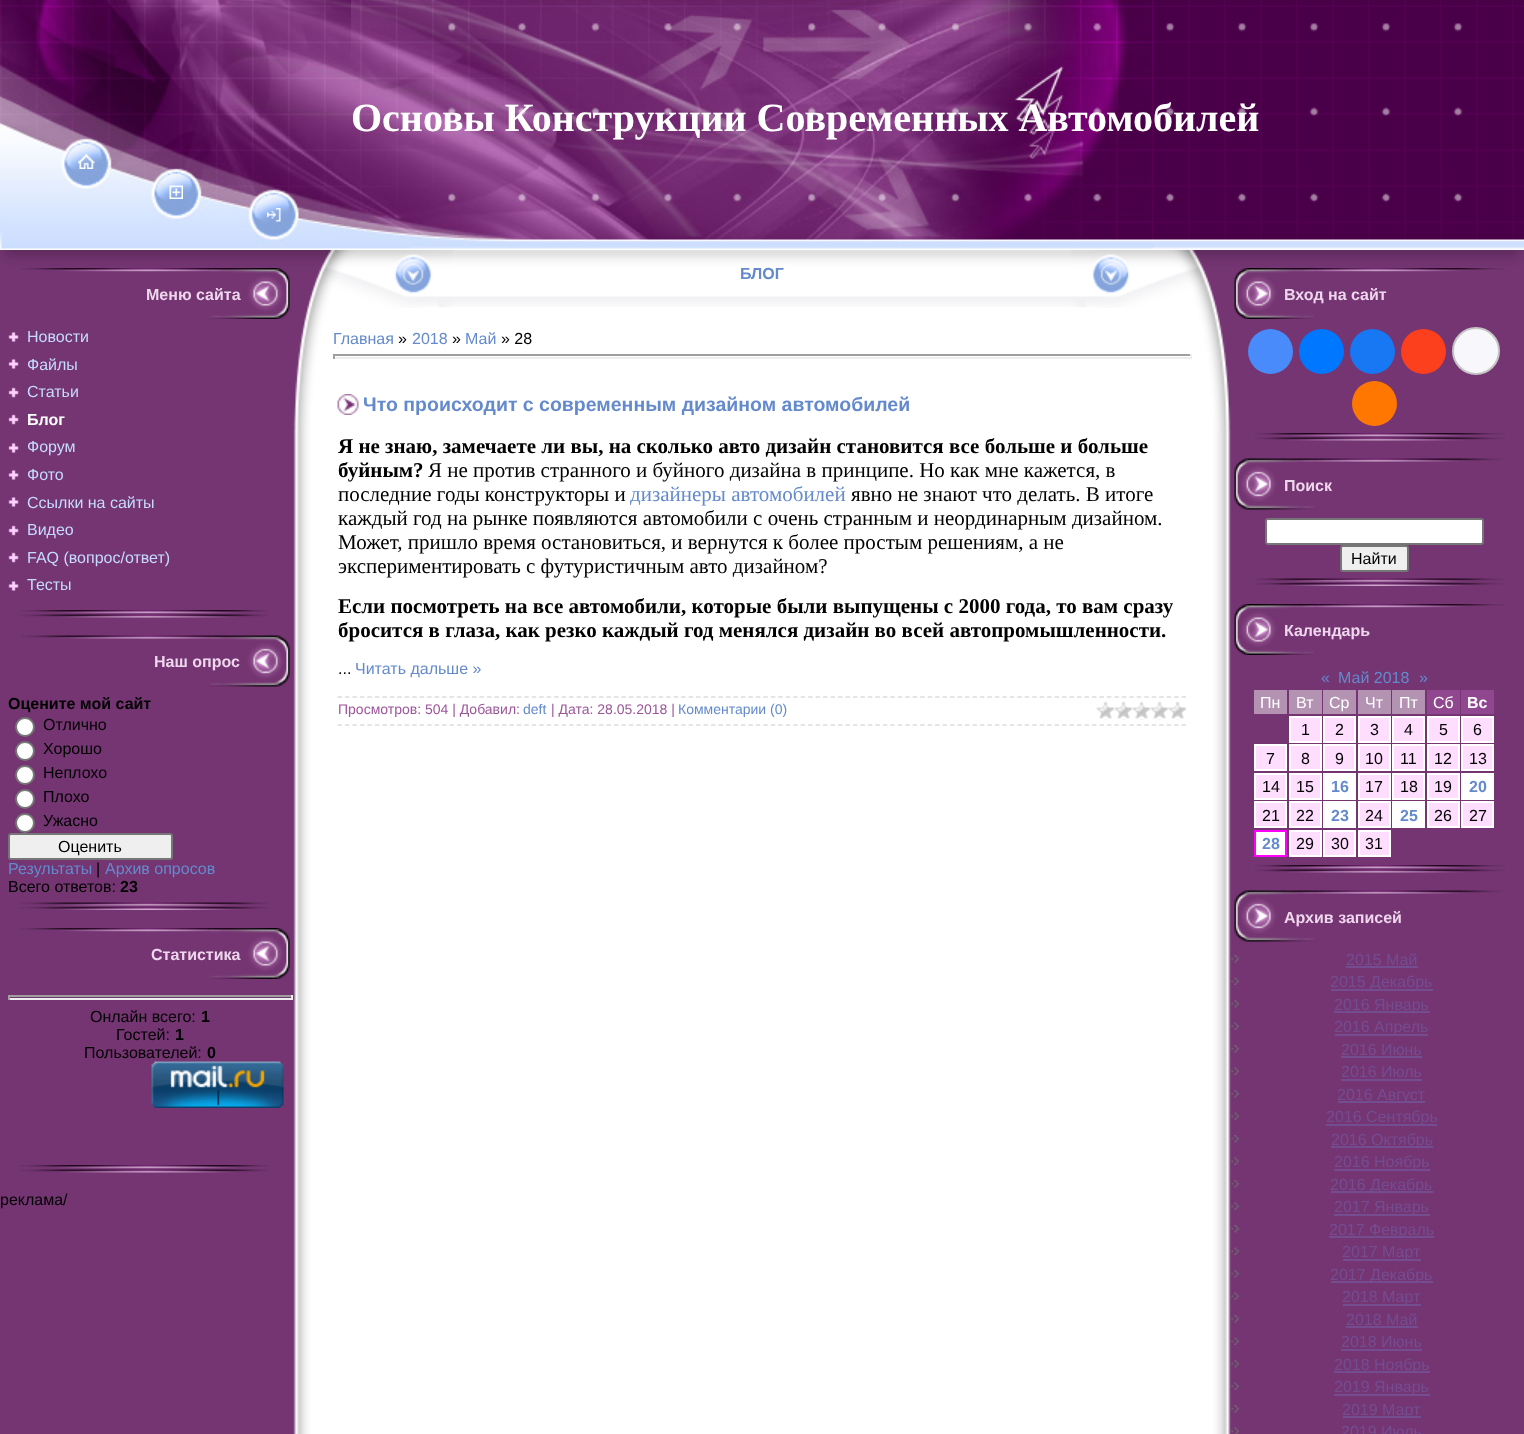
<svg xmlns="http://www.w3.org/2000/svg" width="1524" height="1434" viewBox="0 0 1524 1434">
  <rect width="100%" height="100%" fill="#fff"/>
  <image x="0" y="0" width="1524" height="250" href="img/1.png"/>
  <image x="0" y="0" width="351" height="249" href="img/2.png"/>
  <image x="351" y="0" width="803" height="249" href="img/3.png"/>
  <image x="78" y="154" width="17" height="15" href="img/4.png"/>
  <image x="169" y="185" width="14" height="14" href="img/5.png"/>
  <image x="267" y="208" width="14" height="14" href="img/6.png"/>
  <image x="0" y="430" width="333" height="1004" href="img/7.png"/>
  <image x="0" y="250" width="333" height="180" href="img/8.png"/>
  <image x="20" y="268" width="270" height="51" href="img/9.png"/>
  <image x="8" y="332" width="11" height="10" href="img/10.png"/>
  <image x="8" y="359" width="11" height="10" href="img/10.png"/>
  <image x="8" y="387" width="11" height="11" href="img/11.png"/>
  <image x="8" y="414" width="11" height="11" href="img/11.png"/>
  <image x="8" y="443" width="11" height="10" href="img/10.png"/>
  <image x="8" y="470" width="11" height="10" href="img/10.png"/>
  <image x="8" y="497" width="11" height="10" href="img/10.png"/>
  <image x="8" y="525" width="11" height="11" href="img/11.png"/>
  <image x="8" y="552" width="11" height="11" href="img/11.png"/>
  <image x="8" y="581" width="11" height="10" href="img/10.png"/>
  <image x="19" y="610" width="250" height="8" href="img/12.png"/>
  <image x="21" y="635" width="269" height="52" href="img/13.png"/>
  <circle cx="25" cy="727" r="9" fill="#fff" stroke="#767676" stroke-width="2"/>
  <circle cx="25" cy="751" r="9" fill="#fff" stroke="#767676" stroke-width="2"/>
  <circle cx="25" cy="775" r="9" fill="#fff" stroke="#767676" stroke-width="2"/>
  <circle cx="25" cy="799" r="9" fill="#fff" stroke="#767676" stroke-width="2"/>
  <circle cx="25" cy="823" r="9" fill="#fff" stroke="#767676" stroke-width="2"/>
  <rect x="9" y="834" width="163" height="25" rx="2" fill="#efefef" stroke="#767676" stroke-width="2"/>
  <image x="20" y="902" width="248" height="8" href="img/14.png"/>
  <image x="20" y="928" width="270" height="51" href="img/9.png"/>
  <path d="M8 995h285v2H8z" fill="#9f9f9f"/>
  <path d="M291 995h2v5H291z" fill="#eee"/>
  <path d="M8 998h285v2H8z" fill="#eee"/>
  <path d="M8 995h2v5H8z" fill="#9f9f9f"/>
  <image x="151" y="1061" width="133" height="47" href="img/15.png"/>
  <image x="19" y="1165" width="250" height="8" href="img/12.png"/>
  <image x="333" y="250" width="120" height="58" href="img/16.png"/>
  <image x="453" y="250" width="618" height="57" href="img/17.png"/>
  <image x="1071" y="250" width="120" height="58" href="img/18.png"/>
  <path d="M333 354h858v2H333z" fill="#9f9f9f"/>
  <image x="1191" y="250" width="333" height="180" href="img/22.png"/>
  <path d="M1190 354h2v5H1190z" fill="#eee"/>
  <path d="M333 357h858v2H333z" fill="#eee"/>
  <path d="M333 354h2v5H333z" fill="#9f9f9f"/>
  <image x="337" y="394" width="22" height="21" href="img/19.png"/>
  <path d="M337.5 697H1186.5" fill="none" stroke="#ddd" stroke-width="1.5" stroke-dasharray="4.5 2.97"/>
  <path d="M337.5 725H1186.5" fill="none" stroke="#ddd" stroke-width="1.5" stroke-dasharray="4.5 2.97"/>
  <image x="1096" y="701" width="91" height="19" href="img/20.png"/>
  <image x="1191" y="430" width="333" height="1004" href="img/21.png"/>
  <image x="1234" y="268" width="270" height="51" href="img/23.png"/>
  <circle cx="1270.5" cy="351.5" r="22.5" fill="#498bfa"/>
  <circle cx="1321.5" cy="351.5" r="22.5" fill="#07f"/>
  <circle cx="1372.5" cy="351.5" r="22.5" fill="#1877f2"/>
  <circle cx="1423.5" cy="351.5" r="22.5" fill="#fc3f1d"/>
  <circle cx="1476" cy="351" r="23" fill="#f8f8fc" stroke="#c4c4c4" stroke-width="2"/>
  <circle cx="1374.5" cy="403.5" r="22.5" fill="#f70"/>
  <image x="1255" y="433" width="250" height="8" href="img/24.png"/>
  <image x="1234" y="458" width="269" height="52" href="img/25.png"/>
  <rect x="1266" y="519" width="217" height="25" rx="2" fill="#fff" stroke="#767676" stroke-width="2"/>
  <rect x="1341" y="546" width="67" height="25" rx="2" fill="#efefef" stroke="#767676" stroke-width="2"/>
  <image x="1256" y="578" width="248" height="8" href="img/26.png"/>
  <image x="1234" y="604" width="270" height="51" href="img/23.png"/>
  <path d="M1254 690h33v24H1254z" fill="#b392b2"/>
  <path d="M1289 690h33v24H1289z" fill="#b392b2"/>
  <path d="M1323 690h33v24H1323z" fill="#b392b2"/>
  <path d="M1358 690h33v24H1358z" fill="#b392b2"/>
  <path d="M1392 690h33v24H1392z" fill="#b392b2"/>
  <path d="M1427 690h33v24H1427z" fill="#91478f"/>
  <path d="M1461 690h33v24H1461z" fill="#91478f"/>
  <path d="M1290 717h31v25H1290z" fill="#ffddfe" stroke="#fff" stroke-width="2"/>
  <path d="M1324 717h31v25H1324z" fill="#ffddfe" stroke="#fff" stroke-width="2"/>
  <path d="M1359 717h31v25H1359z" fill="#ffddfe" stroke="#fff" stroke-width="2"/>
  <path d="M1393 717h31v25H1393z" fill="#ffddfe" stroke="#fff" stroke-width="2"/>
  <path d="M1428 717h31v25H1428z" fill="#ffddfe" stroke="#fff" stroke-width="2"/>
  <path d="M1462 717h31v25H1462z" fill="#ffddfe" stroke="#fff" stroke-width="2"/>
  <path d="M1255 745h31v25H1255z" fill="#ffddfe" stroke="#fff" stroke-width="2"/>
  <path d="M1290 745h31v25H1290z" fill="#ffddfe" stroke="#fff" stroke-width="2"/>
  <path d="M1324 745h31v25H1324z" fill="#ffddfe" stroke="#fff" stroke-width="2"/>
  <path d="M1359 745h31v25H1359z" fill="#ffddfe" stroke="#fff" stroke-width="2"/>
  <path d="M1393 745h31v25H1393z" fill="#ffddfe" stroke="#fff" stroke-width="2"/>
  <path d="M1428 745h31v25H1428z" fill="#ffddfe" stroke="#fff" stroke-width="2"/>
  <path d="M1462 745h31v25H1462z" fill="#ffddfe" stroke="#fff" stroke-width="2"/>
  <path d="M1255 774h31v25H1255z" fill="#ffddfe" stroke="#fff" stroke-width="2"/>
  <path d="M1290 774h31v25H1290z" fill="#ffddfe" stroke="#fff" stroke-width="2"/>
  <path d="M1323 773h33v27H1323z" fill="#fff"/>
  <path d="M1359 774h31v25H1359z" fill="#ffddfe" stroke="#fff" stroke-width="2"/>
  <path d="M1393 774h31v25H1393z" fill="#ffddfe" stroke="#fff" stroke-width="2"/>
  <path d="M1428 774h31v25H1428z" fill="#ffddfe" stroke="#fff" stroke-width="2"/>
  <path d="M1461 773h33v27H1461z" fill="#fff"/>
  <path d="M1255 802h31v25H1255z" fill="#ffddfe" stroke="#fff" stroke-width="2"/>
  <path d="M1290 802h31v25H1290z" fill="#ffddfe" stroke="#fff" stroke-width="2"/>
  <path d="M1323 801h33v27H1323z" fill="#fff"/>
  <path d="M1359 802h31v25H1359z" fill="#ffddfe" stroke="#fff" stroke-width="2"/>
  <path d="M1392 801h33v27H1392z" fill="#fff"/>
  <path d="M1428 802h31v25H1428z" fill="#ffddfe" stroke="#fff" stroke-width="2"/>
  <path d="M1462 802h31v25H1462z" fill="#ffddfe" stroke="#fff" stroke-width="2"/>
  <path d="M1255 831h31v25H1255z" fill="#fff" stroke="#ff00f9" stroke-width="2"/>
  <path d="M1290 831h31v25H1290z" fill="#ffddfe" stroke="#fff" stroke-width="2"/>
  <path d="M1324 831h31v25H1324z" fill="#ffddfe" stroke="#fff" stroke-width="2"/>
  <path d="M1359 831h31v25H1359z" fill="#ffddfe" stroke="#fff" stroke-width="2"/>
  <image x="1255" y="865" width="250" height="8" href="img/24.png"/>
  <image x="1234" y="890" width="269" height="52" href="img/25.png"/>
  <image x="1231" y="955" width="8" height="8" href="img/27.png"/>
  <path d="M1346 966h72v2H1346z" fill="#744d91"/>
  <image x="1231" y="977" width="8" height="8" href="img/28.png"/>
  <path d="M1331 989h102v2H1331z" fill="#744d91"/>
  <image x="1231" y="1000" width="8" height="8" href="img/27.png"/>
  <path d="M1334 1011h96v2H1334z" fill="#744d91"/>
  <image x="1231" y="1022" width="8" height="8" href="img/28.png"/>
  <path d="M1335 1034h93v2H1335z" fill="#744d91"/>
  <image x="1231" y="1045" width="8" height="8" href="img/27.png"/>
  <path d="M1341 1056h81v2H1341z" fill="#744d91"/>
  <image x="1231" y="1067" width="8" height="8" href="img/28.png"/>
  <path d="M1341 1079h81v2H1341z" fill="#744d91"/>
  <image x="1231" y="1090" width="8" height="8" href="img/27.png"/>
  <path d="M1338 1101h87v2H1338z" fill="#744d91"/>
  <image x="1231" y="1112" width="8" height="8" href="img/28.png"/>
  <path d="M1326 1124h111v2H1326z" fill="#744d91"/>
  <image x="1231" y="1135" width="8" height="8" href="img/27.png"/>
  <path d="M1331 1146h102v2H1331z" fill="#744d91"/>
  <image x="1231" y="1157" width="8" height="8" href="img/28.png"/>
  <path d="M1334 1169h96v2H1334z" fill="#744d91"/>
  <image x="1231" y="1180" width="8" height="8" href="img/27.png"/>
  <path d="M1331 1191h102v2H1331z" fill="#744d91"/>
  <image x="1231" y="1202" width="8" height="8" href="img/28.png"/>
  <path d="M1334 1214h96v2H1334z" fill="#744d91"/>
  <image x="1231" y="1225" width="8" height="8" href="img/27.png"/>
  <path d="M1329 1236h105v2H1329z" fill="#744d91"/>
  <image x="1231" y="1247" width="8" height="8" href="img/28.png"/>
  <path d="M1343 1259h78v2H1343z" fill="#744d91"/>
  <image x="1231" y="1270" width="8" height="8" href="img/27.png"/>
  <path d="M1331 1281h102v2H1331z" fill="#744d91"/>
  <image x="1231" y="1292" width="8" height="8" href="img/28.png"/>
  <path d="M1343 1304h78v2H1343z" fill="#744d91"/>
  <image x="1231" y="1315" width="8" height="8" href="img/27.png"/>
  <path d="M1346 1326h72v2H1346z" fill="#744d91"/>
  <image x="1231" y="1337" width="8" height="8" href="img/28.png"/>
  <path d="M1341 1349h81v2H1341z" fill="#744d91"/>
  <image x="1231" y="1360" width="8" height="8" href="img/27.png"/>
  <path d="M1334 1371h96v2H1334z" fill="#744d91"/>
  <image x="1231" y="1382" width="8" height="8" href="img/28.png"/>
  <path d="M1334 1394h96v2H1334z" fill="#744d91"/>
  <image x="1231" y="1405" width="8" height="8" href="img/27.png"/>
  <path d="M1343 1416h78v2H1343z" fill="#744d91"/>
  <image x="1231" y="1427" width="8" height="7" href="img/29.png"/>
  <text x="351" y="131" font-family="Liberation Serif" font-size="40" font-weight="bold" fill="#fff">Основы Конструкции Современных Автомобилей</text>
  <text x="146" y="300" font-family="Liberation Sans" font-size="16" font-weight="bold" fill="#eed6ed">Меню сайта</text>
  <g font-family="Liberation Sans" font-size="16" fill="#c6daff">
    <text x="27" y="342">Новости</text>
    <text x="27" y="370">Файлы</text>
    <text x="27" y="397">Статьи</text>
  </g>
  <text x="27" y="425" font-family="Liberation Sans" font-size="16" font-weight="bold" fill="#fff">Блог</text>
  <g font-family="Liberation Sans" font-size="16" fill="#c6daff">
    <text x="27" y="452">Форум</text>
    <text x="27" y="480">Фото</text>
    <text x="27" y="508">Ссылки на сайты</text>
    <text x="27" y="535">Видео</text>
    <text x="27" y="563">FAQ (вопрос/ответ)</text>
    <text x="27" y="590">Тесты</text>
  </g>
  <text x="154" y="667" font-family="Liberation Sans" font-size="16" font-weight="bold" fill="#eed6ed">Наш опрос</text>
  <text x="8" y="709" font-family="Liberation Sans" font-size="16" font-weight="bold" fill="#000">Оцените мой сайт</text>
  <g font-family="Liberation Sans" font-size="16" fill="#000">
    <text x="43" y="730">Отлично</text>
    <text x="43" y="754">Хорошо</text>
    <text x="43" y="778">Неплохо</text>
    <text x="43" y="802">Плохо</text>
    <text x="43" y="826">Ужасно</text>
    <text x="58" y="852">Оценить</text>
  </g>
  <text x="8" y="874" font-family="Liberation Sans" font-size="16" fill="#648acd">Результаты</text>
  <text x="96" y="874" font-family="Liberation Sans" font-size="16" fill="#000">|</text>
  <text x="105" y="874" font-family="Liberation Sans" font-size="16" fill="#648acd">Архив опросов</text>
  <text x="8" y="892" font-family="Liberation Sans" font-size="16" fill="#000">Всего ответов:</text>
  <text x="120" y="892" font-family="Liberation Sans" font-size="16" font-weight="bold" fill="#000">23</text>
  <text x="151" y="960" font-family="Liberation Sans" font-size="16" font-weight="bold" fill="#eed6ed">Статистика</text>
  <text x="90" y="1022" font-family="Liberation Sans" font-size="16" fill="#000">Онлайн всего:</text>
  <text x="201" y="1022" font-family="Liberation Sans" font-size="16" font-weight="bold" fill="#000">1</text>
  <text x="116" y="1040" font-family="Liberation Sans" font-size="16" fill="#000">Гостей:</text>
  <text x="175" y="1040" font-family="Liberation Sans" font-size="16" font-weight="bold" fill="#000">1</text>
  <text x="84" y="1058" font-family="Liberation Sans" font-size="16" fill="#000">Пользователей:</text>
  <text x="207" y="1058" font-family="Liberation Sans" font-size="16" font-weight="bold" fill="#000">0</text>
  <text x="0" y="1205" font-family="Liberation Sans" font-size="16" fill="#000">реклама/</text>
  <text x="740" y="279" font-family="Liberation Sans" font-size="16" font-weight="bold" fill="#648acd">БЛОГ</text>
  <text x="333" y="344" font-family="Liberation Sans" font-size="16" fill="#648acd">Главная</text>
  <text x="398" y="344" font-family="Liberation Sans" font-size="16" fill="#000">»</text>
  <text x="412" y="344" font-family="Liberation Sans" font-size="16" fill="#648acd">2018</text>
  <text x="452" y="344" font-family="Liberation Sans" font-size="16" fill="#000">»</text>
  <text x="465" y="344" font-family="Liberation Sans" font-size="16" fill="#648acd">Май</text>
  <text x="501" y="344" font-family="Liberation Sans" font-size="16" fill="#000">» 28</text>
  <text x="363" y="411" font-family="Liberation Sans" font-size="19.5" font-weight="bold" fill="#648acd">Что происходит с современным дизайном автомобилей</text>
  <g font-family="Liberation Serif" font-size="21" font-weight="bold" fill="#000">
    <text x="338" y="453">Я не знаю, замечаете ли вы, на сколько авто дизайн становится все больше и больше</text>
    <text x="338" y="477">буйным?</text>
  </g>
  <g font-family="Liberation Serif" font-size="21" fill="#000">
    <text x="428" y="477">Я не против странного и буйного дизайна в принципе. Но как мне кажется, в</text>
    <text x="338" y="501">последние годы конструкторы и</text>
  </g>
  <text x="630" y="501" font-family="Liberation Serif" font-size="21" fill="#648acd">дизайнеры автомобилей</text>
  <g font-family="Liberation Serif" font-size="21" fill="#000">
    <text x="851" y="501">явно не знают что делать. В итоге</text>
    <text x="338" y="525">каждый год на рынке появляются автомобили с очень странным и неординарным дизайном.</text>
    <text x="338" y="549">Может, пришло время остановиться, и вернутся к более простым решениям, а не</text>
    <text x="338" y="573">экспериментировать с футуристичным авто дизайном?</text>
  </g>
  <g font-family="Liberation Serif" font-size="21" font-weight="bold" fill="#000">
    <text x="338" y="613">Если посмотреть на все автомобили, которые были выпущены с 2000 года, то вам сразу</text>
    <text x="338" y="637">бросится в глаза, как резко каждый год менялся дизайн во всей автопромышленности.</text>
  </g>
  <text x="338" y="674" font-family="Liberation Sans" font-size="16" fill="#000">...</text>
  <text x="355" y="674" font-family="Liberation Sans" font-size="16" fill="#648acd">Читать дальше »</text>
  <text x="338" y="714" font-family="Liberation Sans" font-size="14" fill="#9c559a">Просмотров: 504 | Добавил:</text>
  <text x="523" y="714" font-family="Liberation Sans" font-size="14" fill="#648acd">deft</text>
  <text x="551" y="714" font-family="Liberation Sans" font-size="14" fill="#9c559a">| Дата: 28.05.2018 |</text>
  <text x="678" y="714" font-family="Liberation Sans" font-size="14" fill="#648acd">Комментарии (0)</text>
  <g font-family="Liberation Sans" font-size="16" font-weight="bold" fill="#eed6ed">
    <text x="1284" y="300">Вход на сайт</text>
    <text x="1284" y="491">Поиск</text>
  </g>
  <text x="1351" y="564" font-family="Liberation Sans" font-size="16" fill="#000">Найти</text>
  <text x="1284" y="636" font-family="Liberation Sans" font-size="16" font-weight="bold" fill="#eed6ed">Календарь</text>
  <g font-family="Liberation Sans" font-size="16" fill="#648acd">
    <text x="1321" y="683">«</text>
    <text x="1338" y="683">Май 2018</text>
    <text x="1419" y="683">»</text>
  </g>
  <g font-family="Liberation Sans" font-size="16" fill="#fff">
    <text x="1260" y="708">Пн</text>
    <text x="1296" y="708">Вт</text>
    <text x="1329" y="708">Ср</text>
    <text x="1365" y="708">Чт</text>
    <text x="1399" y="708">Пт</text>
    <text x="1433" y="708">Сб</text>
  </g>
  <text x="1467" y="708" font-family="Liberation Sans" font-size="16" font-weight="bold" fill="#fff">Вс</text>
  <g font-family="Liberation Sans" font-size="16" fill="#000">
    <text x="1301" y="735">1</text>
    <text x="1335" y="735">2</text>
    <text x="1370" y="735">3</text>
    <text x="1404" y="735">4</text>
    <text x="1439" y="735">5</text>
    <text x="1473" y="735">6</text>
    <text x="1266" y="764">7</text>
    <text x="1301" y="764">8</text>
    <text x="1335" y="764">9</text>
    <text x="1365" y="764">10</text>
    <text x="1400" y="764">11</text>
    <text x="1434" y="764">12</text>
    <text x="1469" y="764">13</text>
    <text x="1262" y="792">14</text>
    <text x="1296" y="792">15</text>
  </g>
  <text x="1331" y="792" font-family="Liberation Sans" font-size="16" font-weight="bold" fill="#648acd">16</text>
  <g font-family="Liberation Sans" font-size="16" fill="#000">
    <text x="1365" y="792">17</text>
    <text x="1400" y="792">18</text>
    <text x="1434" y="792">19</text>
  </g>
  <text x="1469" y="792" font-family="Liberation Sans" font-size="16" font-weight="bold" fill="#648acd">20</text>
  <g font-family="Liberation Sans" font-size="16" fill="#000">
    <text x="1262" y="821">21</text>
    <text x="1296" y="821">22</text>
  </g>
  <text x="1331" y="821" font-family="Liberation Sans" font-size="16" font-weight="bold" fill="#648acd">23</text>
  <text x="1365" y="821" font-family="Liberation Sans" font-size="16" fill="#000">24</text>
  <text x="1400" y="821" font-family="Liberation Sans" font-size="16" font-weight="bold" fill="#648acd">25</text>
  <g font-family="Liberation Sans" font-size="16" fill="#000">
    <text x="1434" y="821">26</text>
    <text x="1469" y="821">27</text>
  </g>
  <text x="1262" y="849" font-family="Liberation Sans" font-size="16" font-weight="bold" fill="#648acd">28</text>
  <g font-family="Liberation Sans" font-size="16" fill="#000">
    <text x="1296" y="849">29</text>
    <text x="1331" y="849">30</text>
    <text x="1365" y="849">31</text>
  </g>
  <text x="1284" y="923" font-family="Liberation Sans" font-size="16" font-weight="bold" fill="#eed6ed">Архив записей</text>
  <g font-family="Liberation Sans" font-size="16" fill="#744d91">
    <text x="1346" y="965">2015 Май</text>
    <text x="1330" y="987">2015 Декабрь</text>
    <text x="1334" y="1010">2016 Январь</text>
    <text x="1334" y="1032">2016 Апрель</text>
    <text x="1341" y="1055">2016 Июнь</text>
    <text x="1341" y="1077">2016 Июль</text>
    <text x="1337" y="1100">2016 Август</text>
    <text x="1326" y="1122">2016 Сентябрь</text>
    <text x="1331" y="1145">2016 Октябрь</text>
    <text x="1334" y="1167">2016 Ноябрь</text>
    <text x="1330" y="1190">2016 Декабрь</text>
    <text x="1334" y="1212">2017 Январь</text>
    <text x="1329" y="1235">2017 Февраль</text>
    <text x="1342" y="1257">2017 Март</text>
    <text x="1330" y="1280">2017 Декабрь</text>
    <text x="1342" y="1302">2018 Март</text>
    <text x="1346" y="1325">2018 Май</text>
    <text x="1341" y="1347">2018 Июнь</text>
    <text x="1334" y="1370">2018 Ноябрь</text>
    <text x="1334" y="1392">2019 Январь</text>
    <text x="1342" y="1415">2019 Март</text>
    <text x="1341" y="1437">2019 Июль</text>
  </g>
</svg>
